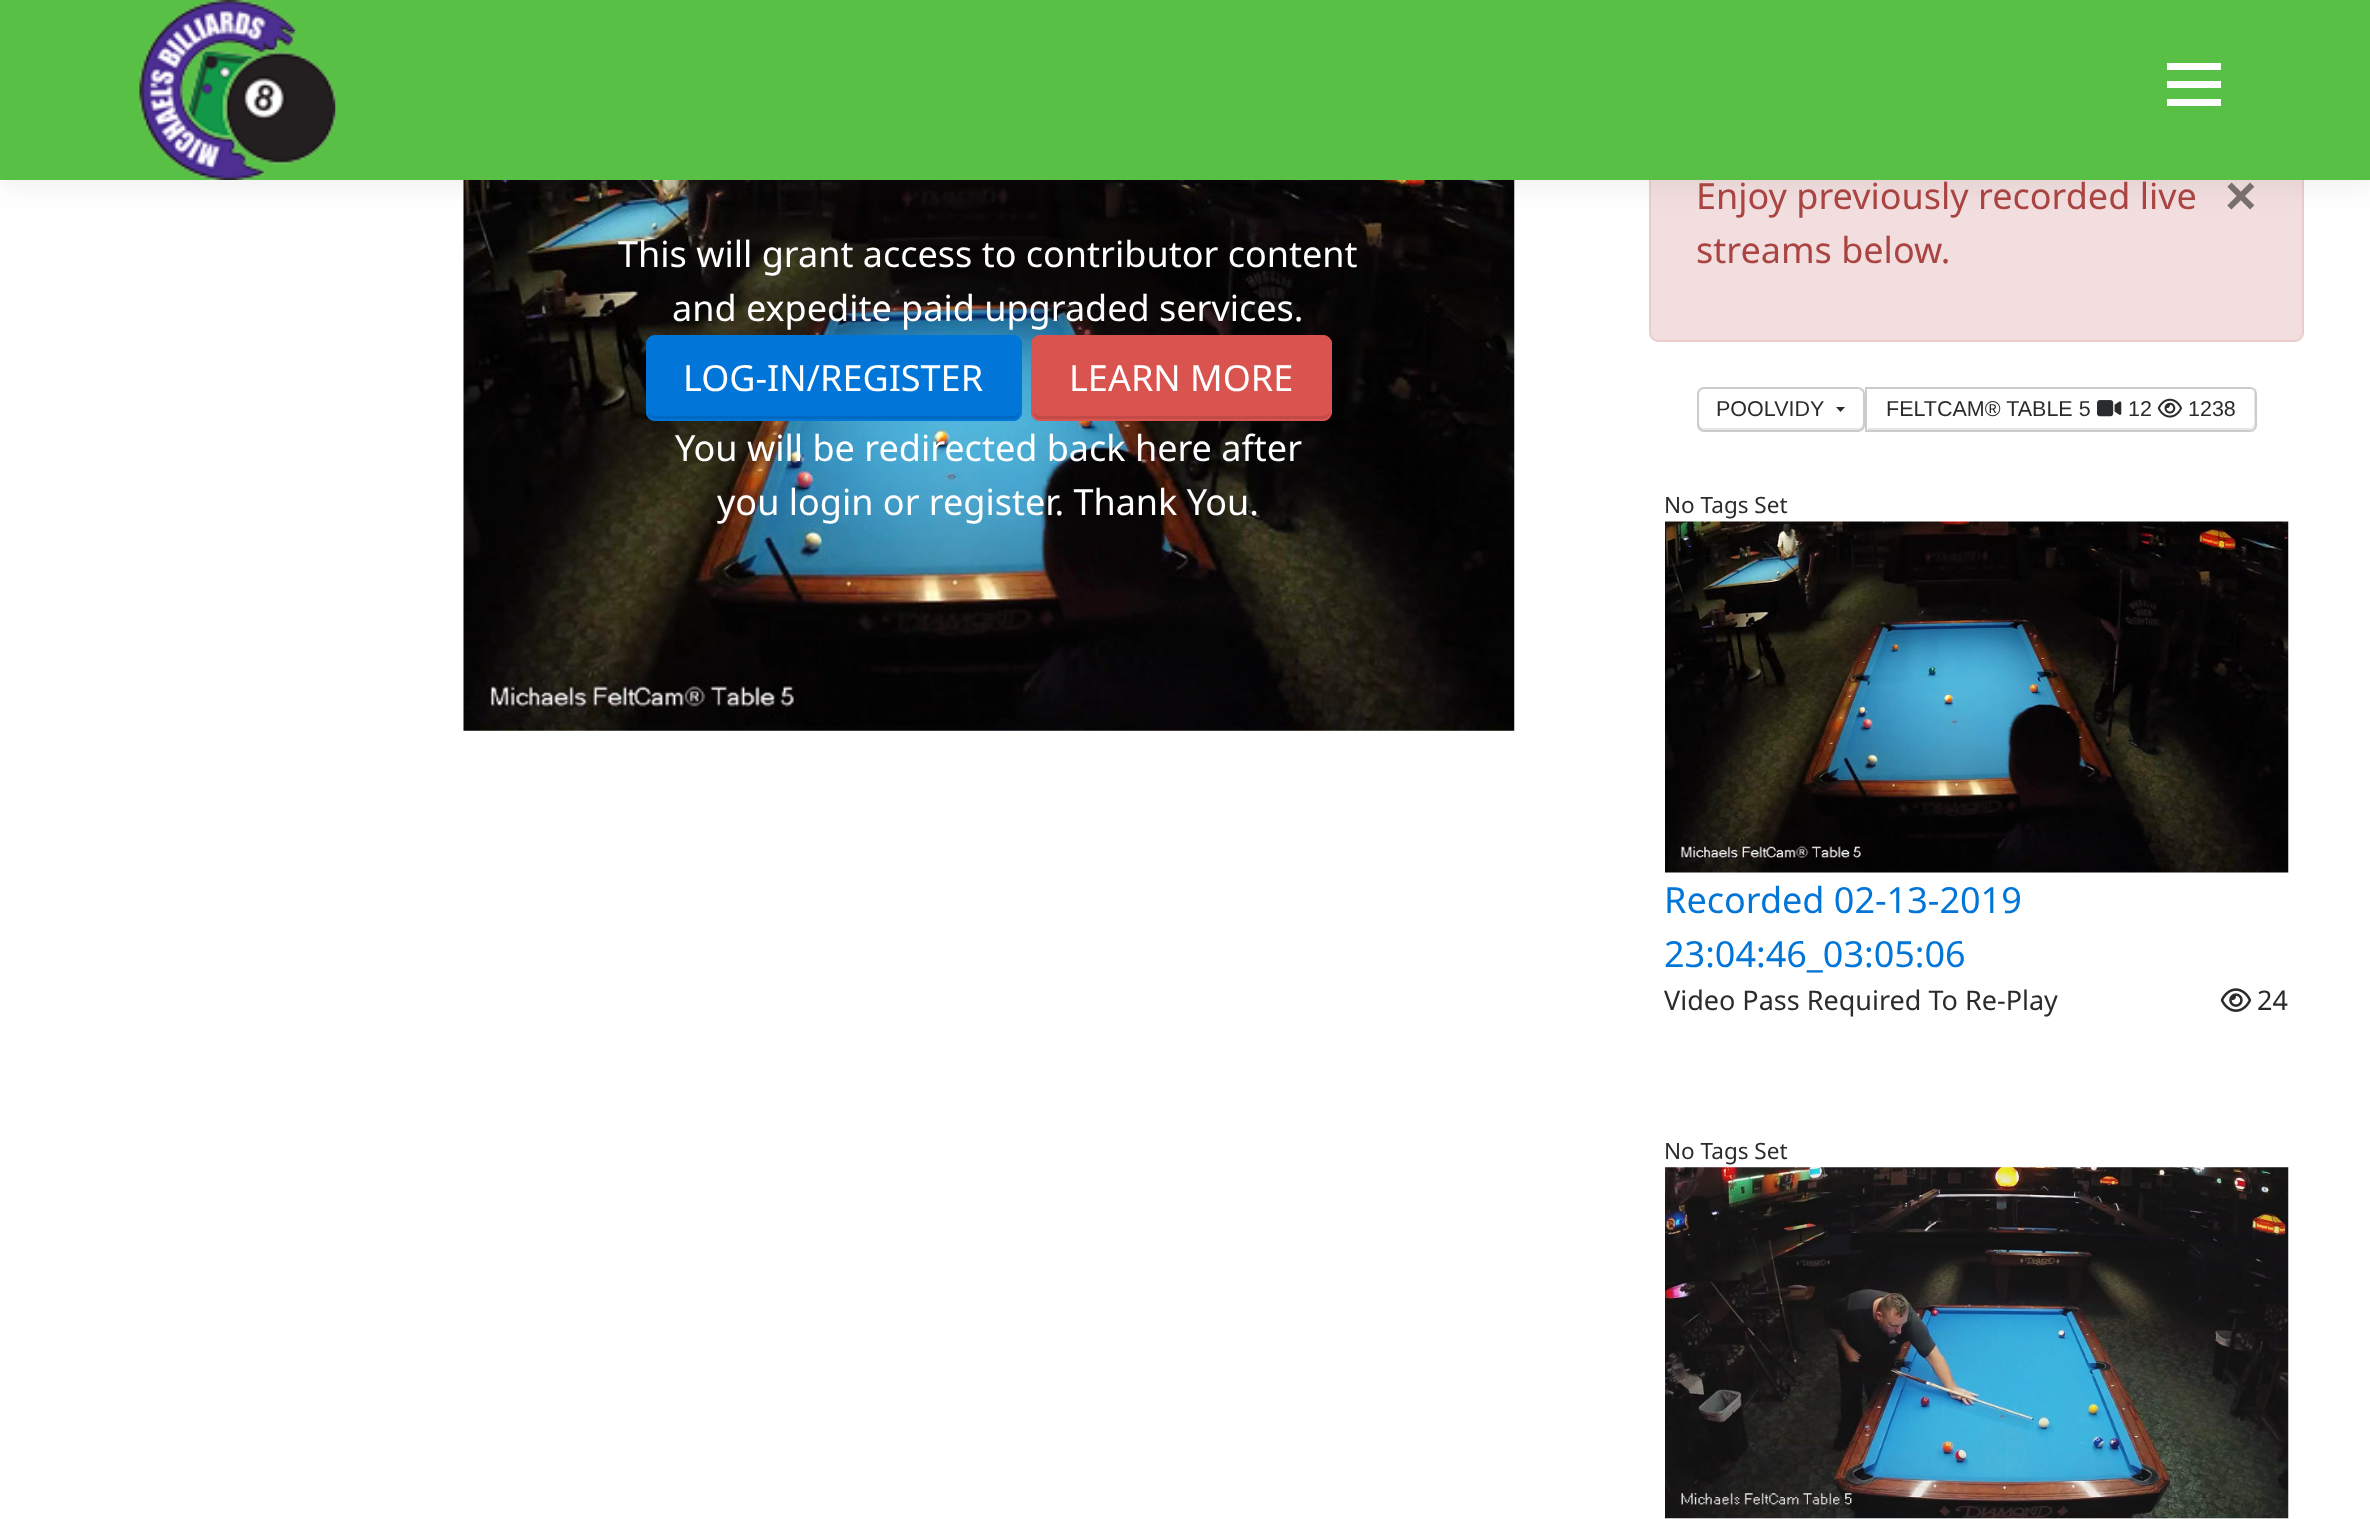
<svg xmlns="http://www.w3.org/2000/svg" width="2370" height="1519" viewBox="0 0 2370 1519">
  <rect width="100%" height="100%" fill="#fff"/>
  <image x="463" y="180" width="1052" height="551" href="img/2.png"/>
  <rect x="1650" y="141" width="653" height="200" rx="8" fill="#f2dede" stroke="#ebcccc" stroke-width="2"/>
  <path d="M0 11h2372v180H0z" fill="#3232320f" filter="blur(11px)"/>
  <path d="M0 0h2370v180H0z" fill="#58c145"/>
  <image x="139" y="0" width="197" height="180" href="img/1.png"/>
  <path d="M2167 81h54v7H2167z" fill="#fff"/>
  <path d="M2167 63h54v7H2167z" fill="#fff"/>
  <path d="M2167 99h54v7H2167z" fill="#fff"/>
  <rect x="646" y="335" width="376" height="86" rx="9" fill="#0275d8"/>
  <path d="M648 410V412C648 416 651 419 655 419H1012C1016 419 1019 416 1019 412V410C1019 413 1016 416 1012 416H655C651 416 648 413 648 410Z" fill="#0269c2"/>
  <rect x="647" y="336" width="374" height="84" rx="8" fill="none" stroke="#0275d8" stroke-width="2"/>
  <rect x="1031" y="335" width="301" height="86" rx="9" fill="#d9534f"/>
  <path d="M1033 410C1033 414 1034 418 1039 419H1324C1329 418 1330 414 1330 410C1330 413 1327 416 1323 416H1040C1036 416 1033 413 1033 410Z" fill="#c34b47"/>
  <rect x="1032" y="336" width="299" height="84" rx="8" fill="none" stroke="#d9534f" stroke-width="2"/>
  <path d="M1699 423V425C1699 428 1701 430 1704 430H1858C1861 430 1863 428 1863 425V423C1863 425 1861 428 1858 428H1704C1701 428 1699 425 1699 423Z" fill="#e6e6e6"/>
  <rect x="1698" y="388" width="166" height="43" rx="6" fill="none" stroke="#ccc" stroke-width="2"/>
  <path d="M1836 407H1845L1840.5 412Z" fill="#292b2c"/>
  <path d="M1868 428V430H2250C2253 430 2255 428 2255 425V394C2255 393 2255 392 2254 391V413C2254 415 2256 428 2250 428Z" fill="#e6e6e6"/>
  <path d="M1866 388H2250C2253.5 388 2256 390.5 2256 394V425C2256 428.5 2253.5 431 2250 431H1866Z" fill="none" stroke="#ccc" stroke-width="2"/>
  <image x="2097" y="400" width="25" height="17" href="img/3.png"/>
  <image x="2157" y="398" width="25" height="20" href="img/4.png"/>
  <image x="1665" y="521" width="624" height="352" href="img/5.png"/>
  <image x="2220" y="988" width="32" height="24" href="img/6.png"/>
  <image x="1665" y="1167" width="624" height="352" href="img/7.png"/>
  <g font-family="Noto Sans" font-size="36" fill="#fff">
    <text x="618" y="267">This will grant access to contributor content</text>
    <text x="672" y="321">and expedite paid upgraded services.</text>
    <text x="683" y="391">LOG-IN/REGISTER</text>
    <text x="1069" y="391">LEARN MORE</text>
    <text x="675" y="461">You will be redirected back here after</text>
    <text x="717" y="515">you login or register. Thank You.</text>
  </g>
  <g font-family="Noto Sans" font-size="36" fill="#a94442">
    <text x="1696" y="209">Enjoy previously recorded live</text>
    <text x="1696" y="263">streams below.</text>
  </g>
  <text x="2225" y="214" font-family="Liberation Sans" font-size="54" font-weight="bold" fill="#796f6f">×</text>
  <g font-family="Liberation Sans" font-size="21.5" fill="#292b2c">
    <text x="1716" y="416">POOLVIDY</text>
    <text x="1886" y="416">FELTCAM® TABLE 5</text>
    <text x="2128" y="416">12</text>
    <text x="2188" y="416">1238</text>
  </g>
  <text x="1664" y="513" font-family="Noto Sans" font-size="22.5" fill="#292b2c">No Tags Set</text>
  <g font-family="Noto Sans" font-size="36" fill="#0275d8">
    <text x="1664" y="913">Recorded 02-13-2019</text>
    <text x="1664" y="967">23:04:46_03:05:06</text>
  </g>
  <g font-family="Noto Sans" font-size="27" fill="#292b2c">
    <text x="1664" y="1010">Video Pass Required To Re-Play</text>
    <text x="2257" y="1010">24</text>
  </g>
  <text x="1664" y="1159" font-family="Noto Sans" font-size="22.5" fill="#292b2c">No Tags Set</text>
</svg>
